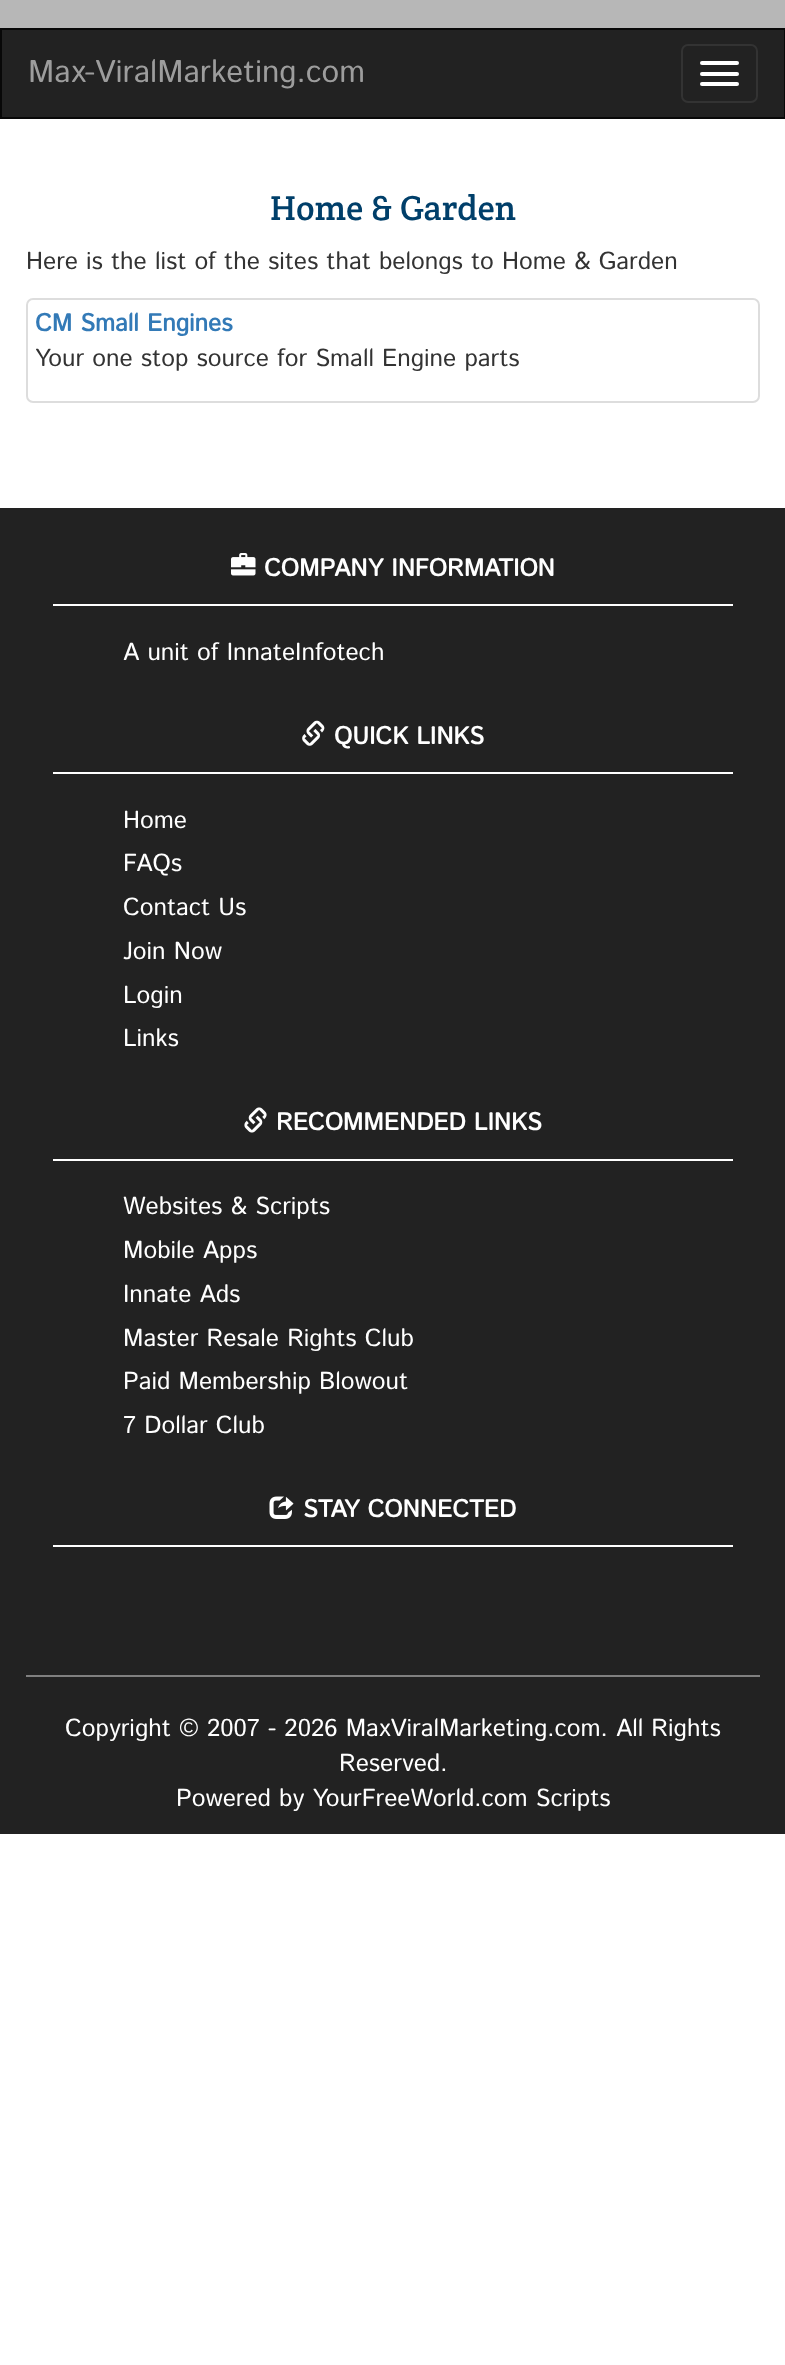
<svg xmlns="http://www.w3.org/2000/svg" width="785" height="2365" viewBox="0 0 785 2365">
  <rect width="100%" height="100%" fill="#fff"/>
  <path d="M0 0h785v28H0z" fill="#b7b7b7"/>
  <path d="M1 29h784v89H1z" fill="#222" stroke="#080808" stroke-width="2"/>
  <rect x="682" y="45" width="75" height="57" rx="6" fill="none" stroke="#333" stroke-width="2"/>
  <rect x="700" y="61" width="39" height="4" rx="2" fill="#fff"/>
  <rect x="700" y="72" width="39" height="4" rx="2" fill="#fff"/>
  <rect x="700" y="82" width="39" height="4" rx="2" fill="#fff"/>
  <rect x="27" y="299" width="732" height="103" rx="6" fill="none" stroke="#ddd" stroke-width="2"/>
  <path d="M0 508h785v1326H0z" fill="#222"/>
  <path d="M53 604h680v2H53z" fill="#fff"/>
  <image x="231" y="553" width="25" height="23" href="img/1.png"/>
  <path d="M53 772h680v2H53z" fill="#fff"/>
  <image x="302" y="720" width="23" height="26" href="img/2.png"/>
  <path d="M53 1159h680v2H53z" fill="#fff"/>
  <image x="244" y="1107" width="23" height="26" href="img/3.png"/>
  <path d="M53 1545h680v2H53z" fill="#fff"/>
  <image x="269" y="1496" width="25" height="23" href="img/4.png"/>
  <path d="M26 1675h734v2H26z" fill="#808080"/>
  <text x="28" y="82" font-family="Istok Web" font-size="31.5" fill="#9d9d9d">Max-ViralMarketing.com</text>
  <text x="270" y="220" font-family="Crete Round" font-size="35" fill="#003f6a">Home &amp; Garden</text>
  <text x="26" y="269" font-family="Istok Web" font-size="24.5" fill="#333">Here is the list of the sites that belongs to Home &amp; Garden</text>
  <text x="35" y="331" font-family="Istok Web" font-size="24.5" font-weight="bold" fill="#337ab7">CM Small Engines</text>
  <text x="35" y="366" font-family="Istok Web" font-size="24.5" fill="#333">Your one stop source for Small Engine parts</text>
  <text x="264" y="576" font-family="Istok Web" font-size="24.5" font-weight="bold" fill="#fff">COMPANY INFORMATION</text>
  <text x="123" y="660" font-family="Istok Web" font-size="24.5" fill="#fff">A unit of InnateInfotech</text>
  <text x="334" y="744" font-family="Istok Web" font-size="24.5" font-weight="bold" fill="#fff">QUICK LINKS</text>
  <g font-family="Istok Web" font-size="24.5" fill="#fff">
    <text x="123" y="828">Home</text>
    <text x="123" y="871">FAQs</text>
    <text x="123" y="915">Contact Us</text>
    <text x="123" y="959">Join Now</text>
    <text x="123" y="1003">Login</text>
    <text x="123" y="1046">Links</text>
  </g>
  <text x="276" y="1130" font-family="Istok Web" font-size="24.5" font-weight="bold" fill="#fff">RECOMMENDED LINKS</text>
  <g font-family="Istok Web" font-size="24.5" fill="#fff">
    <text x="123" y="1214">Websites &amp; Scripts</text>
    <text x="123" y="1258">Mobile Apps</text>
    <text x="123" y="1302">Innate Ads</text>
    <text x="123" y="1346">Master Resale Rights Club</text>
    <text x="123" y="1389">Paid Membership Blowout</text>
    <text x="123" y="1433">7 Dollar Club</text>
  </g>
  <text x="303" y="1517" font-family="Istok Web" font-size="24.5" font-weight="bold" fill="#fff">STAY CONNECTED</text>
  <g font-family="Istok Web" font-size="24.5" fill="#fff">
    <text x="65" y="1736">Copyright © 2007 - 2026 MaxViralMarketing.com. All Rights</text>
    <text x="339" y="1771">Reserved.</text>
    <text x="176" y="1806">Powered by YourFreeWorld.com Scripts</text>
  </g>
</svg>
